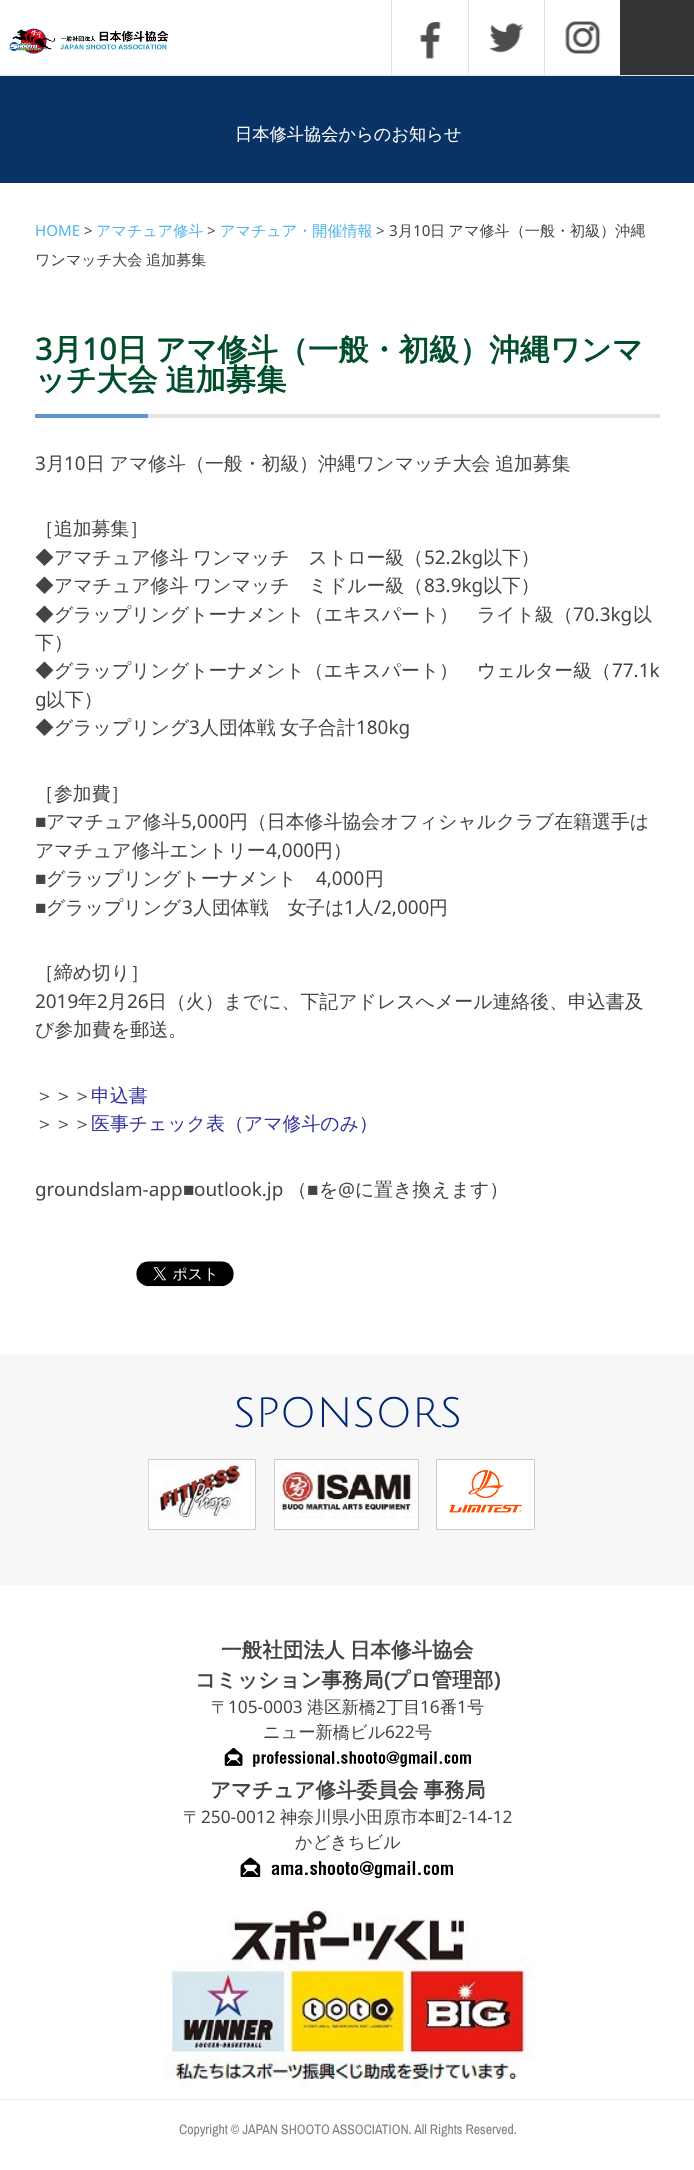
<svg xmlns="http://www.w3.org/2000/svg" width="694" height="2170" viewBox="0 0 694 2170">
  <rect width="100%" height="100%" fill="#fff"/>
  <image x="9" y="28" width="159" height="26" href="img/1.png"/>
  <image x="420" y="22" width="21" height="37" href="img/2.png"/>
  <path d="M391 0h1v75H391z" fill="#e3e3e3"/>
  <image x="489" y="23" width="35" height="30" href="img/3.png"/>
  <path d="M468 0h1v75H468z" fill="#e3e3e3"/>
  <image x="565" y="21" width="36" height="33" href="img/4.png"/>
  <path d="M544 0h1v75H544z" fill="#e3e3e3"/>
  <path d="M620 0h74v75H620z" fill="#333"/>
  <path d="M0 75h694v1H0z" fill="#e3e3e3"/>
  <path d="M0 76h694v107H0z" fill="#093364"/>
  <path d="M148 414h512v4H148z" fill="#e5e5e5"/>
  <path d="M35 414h113v4H35z" fill="#5e94ce"/>
  <image x="136" y="1261" width="98" height="26" href="img/5.png"/>
  <path d="M0 1355h694v230H0z" fill="#f7f7f7"/>
  <path d="M148.5 1459.5h107v70H148.5z" fill="#fff" stroke="#ccc"/>
  <image x="148" y="1461" width="94" height="60" href="img/6.png"/>
  <path d="M274.5 1459.5h144v70H274.5z" fill="#fff" stroke="#ccc"/>
  <image x="279" y="1464" width="136" height="55" href="img/7.png"/>
  <path d="M436.5 1459.5h98v70H436.5z" fill="#fff" stroke="#ccc"/>
  <image x="449" y="1470" width="73" height="43" href="img/8.png"/>
  <image x="224" y="1748" width="247" height="19" href="img/9.png"/>
  <image x="240" y="1857" width="213" height="22" href="img/10.png"/>
  <image x="164" y="1909" width="371" height="180" href="img/11.png"/>
  <path d="M0 2099h694v1H0z" fill="#ebebeb"/>
  <text x="235" y="140" font-family="WenQuanYi Zen Hei" font-size="17.25" font-weight="500" fill="#fff">日本修斗協会からのお知らせ</text>
  <text x="35" y="236" font-family="Noto Sans" font-size="15.1" fill="#52b5ee">HOME</text>
  <text x="84" y="236" font-family="Noto Sans" font-size="15.1" fill="#555">&gt;</text>
  <text x="96" y="236" font-family="WenQuanYi Zen Hei" font-size="15.1" font-weight="500" fill="#52b5ee">アマチュア修斗</text>
  <text x="207" y="236" font-family="Noto Sans" font-size="15.1" fill="#555">&gt;</text>
  <text x="220" y="236" font-family="WenQuanYi Zen Hei" font-size="15.1" font-weight="500" fill="#52b5ee">アマチュア・開催情報</text>
  <text x="376" y="236" font-family="Noto Sans" font-size="15.1" fill="#555">&gt;</text>
  <text x="389" y="236" font-family="Noto Sans" font-size="15.1" fill="#444">3</text>
  <text x="398" y="236" font-family="WenQuanYi Zen Hei" font-size="15.1" font-weight="500" fill="#444">月</text>
  <text x="413" y="236" font-family="Noto Sans" font-size="15.1" fill="#444">10</text>
  <g font-family="WenQuanYi Zen Hei" font-size="15.1" font-weight="500" fill="#444">
    <text x="430" y="236" word-spacing="-1">日 アマ修斗（一般・初級）沖縄</text>
    <text x="35" y="265" word-spacing="-1">ワンマッチ大会 追加募集</text>
  </g>
  <text x="35" y="360" font-family="Noto Sans" font-size="30.25" font-weight="bold" fill="#004e2b">3</text>
  <text x="52" y="360" font-family="WenQuanYi Zen Hei" font-size="30.25" font-weight="bold" fill="#004e2b">月</text>
  <text x="82" y="360" font-family="Noto Sans" font-size="30.25" font-weight="bold" fill="#004e2b">10</text>
  <g font-family="WenQuanYi Zen Hei" font-size="30.25" font-weight="bold" fill="#004e2b">
    <text x="117" y="360" word-spacing="-1">日 アマ修斗（一般・初級）沖縄ワンマ</text>
    <text x="35" y="390" word-spacing="-1">ッチ大会 追加募集</text>
  </g>
  <text x="35" y="470" font-family="Noto Sans" font-size="18.9" fill="#444">3</text>
  <text x="46" y="470" font-family="WenQuanYi Zen Hei" font-size="18.9" font-weight="500" fill="#444">月</text>
  <text x="64" y="470" font-family="Noto Sans" font-size="18.9" fill="#444">10</text>
  <g font-family="WenQuanYi Zen Hei" font-size="18.9" font-weight="500" fill="#444">
    <text x="86" y="470" word-spacing="-1">日 アマ修斗（一般・初級）沖縄ワンマッチ大会 追加募集</text>
    <text x="35" y="535">［追加募集］</text>
    <text x="35" y="564" word-spacing="-1">◆アマチュア修斗 ワンマッチ　ストロー級（</text>
  </g>
  <text x="424" y="564" font-family="Noto Sans" font-size="18.9" fill="#444">52.2kg</text>
  <g font-family="WenQuanYi Zen Hei" font-size="18.9" font-weight="500" fill="#444">
    <text x="483" y="564">以下）</text>
    <text x="35" y="592" word-spacing="-1">◆アマチュア修斗 ワンマッチ　ミドルー級（</text>
  </g>
  <text x="424" y="592" font-family="Noto Sans" font-size="18.9" fill="#444">83.9kg</text>
  <g font-family="WenQuanYi Zen Hei" font-size="18.9" font-weight="500" fill="#444">
    <text x="483" y="592">以下）</text>
    <text x="35" y="621">◆グラップリングトーナメント（エキスパート）　ライト級（</text>
  </g>
  <text x="573" y="621" font-family="Noto Sans" font-size="18.9" fill="#444">70.3kg</text>
  <g font-family="WenQuanYi Zen Hei" font-size="18.9" font-weight="500" fill="#444">
    <text x="633" y="621">以</text>
    <text x="35" y="649">下）</text>
    <text x="35" y="677">◆グラップリングトーナメント（エキスパート）　ウェルター級（</text>
  </g>
  <g font-family="Noto Sans" font-size="18.9" fill="#444">
    <text x="612" y="677">77.1k</text>
    <text x="35" y="706">g</text>
  </g>
  <g font-family="WenQuanYi Zen Hei" font-size="18.9" font-weight="500" fill="#444">
    <text x="46" y="706">以下）</text>
    <text x="35" y="734">◆グラップリング</text>
  </g>
  <text x="189" y="734" font-family="Noto Sans" font-size="18.9" fill="#444">3</text>
  <g font-family="WenQuanYi Zen Hei" font-size="18.9" font-weight="500" fill="#444">
    <text x="200" y="734">人団体戦</text>
    <text x="280" y="734">女子合計</text>
  </g>
  <text x="356" y="734" font-family="Noto Sans" font-size="18.9" fill="#444">180kg</text>
  <text x="35" y="800" font-family="WenQuanYi Zen Hei" font-size="18.9" font-weight="500" fill="#444">［参加費］</text>
  <text x="35" y="828" font-family="Liberation Sans" font-size="18.9" fill="#444">■</text>
  <text x="46" y="828" font-family="WenQuanYi Zen Hei" font-size="18.9" font-weight="500" fill="#444">アマチュア修斗</text>
  <text x="181" y="828" font-family="Noto Sans" font-size="18.9" fill="#444">5,000</text>
  <g font-family="WenQuanYi Zen Hei" font-size="18.9" font-weight="500" fill="#444">
    <text x="229" y="828">円（日本修斗協会オフィシャルクラブ在籍選手は</text>
    <text x="35" y="857">アマチュア修斗エントリー</text>
  </g>
  <text x="266" y="857" font-family="Noto Sans" font-size="18.9" fill="#444">4,000</text>
  <text x="314" y="857" font-family="WenQuanYi Zen Hei" font-size="18.9" font-weight="500" fill="#444">円）</text>
  <text x="35" y="885" font-family="Liberation Sans" font-size="18.9" fill="#444">■</text>
  <text x="46" y="885" font-family="WenQuanYi Zen Hei" font-size="18.9" font-weight="500" fill="#444">グラップリングトーナメント</text>
  <text x="316" y="885" font-family="Noto Sans" font-size="18.9" fill="#444">4,000</text>
  <text x="365" y="885" font-family="WenQuanYi Zen Hei" font-size="18.9" font-weight="500" fill="#444">円</text>
  <text x="35" y="914" font-family="Liberation Sans" font-size="18.9" fill="#444">■</text>
  <text x="46" y="914" font-family="WenQuanYi Zen Hei" font-size="18.9" font-weight="500" fill="#444">グラップリング</text>
  <text x="182" y="914" font-family="Noto Sans" font-size="18.9" fill="#444">3</text>
  <text x="193" y="914" font-family="WenQuanYi Zen Hei" font-size="18.9" font-weight="500" fill="#444">人団体戦　女子は</text>
  <text x="344" y="914" font-family="Noto Sans" font-size="18.9" fill="#444">1</text>
  <text x="355" y="914" font-family="WenQuanYi Zen Hei" font-size="18.9" font-weight="500" fill="#444">人</text>
  <text x="374" y="914" font-family="Noto Sans" font-size="18.9" fill="#444">/2,000</text>
  <g font-family="WenQuanYi Zen Hei" font-size="18.9" font-weight="500" fill="#444">
    <text x="429" y="914">円</text>
    <text x="35" y="979">［締め切り］</text>
  </g>
  <text x="35" y="1008" font-family="Noto Sans" font-size="18.9" fill="#444">2019</text>
  <text x="78" y="1008" font-family="WenQuanYi Zen Hei" font-size="18.9" font-weight="500" fill="#444">年</text>
  <text x="97" y="1008" font-family="Noto Sans" font-size="18.9" fill="#444">2</text>
  <text x="108" y="1008" font-family="WenQuanYi Zen Hei" font-size="18.9" font-weight="500" fill="#444">月</text>
  <text x="127" y="1008" font-family="Noto Sans" font-size="18.9" fill="#444">26</text>
  <g font-family="WenQuanYi Zen Hei" font-size="18.9" font-weight="500" fill="#444">
    <text x="148" y="1008">日（火）までに、下記アドレスへメール連絡後、申込書及</text>
    <text x="35" y="1036">び参加費を郵送。</text>
    <text x="35" y="1102">＞＞＞</text>
  </g>
  <text x="91" y="1102" font-family="WenQuanYi Zen Hei" font-size="18.9" font-weight="500" fill="#339">申込書</text>
  <text x="35" y="1130" font-family="WenQuanYi Zen Hei" font-size="18.9" font-weight="500" fill="#444">＞＞＞</text>
  <text x="91" y="1130" font-family="WenQuanYi Zen Hei" font-size="18.9" font-weight="500" fill="#339">医事チェック表（アマ修斗のみ）</text>
  <text x="35" y="1196" font-family="Noto Sans" font-size="18.9" fill="#444">groundslam-app</text>
  <text x="183" y="1196" font-family="Liberation Sans" font-size="18.9" fill="#444">■</text>
  <text x="194" y="1196" font-family="Noto Sans" font-size="18.9" fill="#444">outlook.jp</text>
  <text x="288" y="1196" font-family="WenQuanYi Zen Hei" font-size="18.9" font-weight="500" fill="#444">（</text>
  <text x="307" y="1196" font-family="Liberation Sans" font-size="18.9" fill="#444">■</text>
  <text x="319" y="1196" font-family="WenQuanYi Zen Hei" font-size="18.9" font-weight="500" fill="#444">を</text>
  <text x="338" y="1196" font-family="Noto Sans" font-size="18.9" fill="#444">@</text>
  <text x="355" y="1196" font-family="WenQuanYi Zen Hei" font-size="18.9" font-weight="500" fill="#444">に置き換えます）</text>
  <text x="233" y="1427" font-family="Julius Sans One" font-size="41.5" fill="#002574">SPONSORS</text>
  <g font-family="WenQuanYi Zen Hei" font-size="20.6" font-weight="bold" fill="#444">
    <text x="221" y="1657" word-spacing="-1">一般社団法人 日本修斗協会</text>
    <text x="195" y="1687">コミッション事務局 プロ管理部</text>
  </g>
  <g font-family="Noto Sans" font-size="20.6" font-weight="bold" fill="#444">
    <text x="384" y="1687">(</text>
    <text x="494" y="1687">)</text>
  </g>
  <text x="211" y="1713" font-family="WenQuanYi Zen Hei" font-size="17.25" font-weight="500" fill="#444">〒</text>
  <text x="228" y="1713" font-family="Noto Sans" font-size="17.25" fill="#444">105-0003</text>
  <text x="307" y="1713" font-family="WenQuanYi Zen Hei" font-size="17.25" font-weight="500" fill="#444">港区新橋</text>
  <text x="376" y="1713" font-family="Noto Sans" font-size="17.25" fill="#444">2</text>
  <text x="386" y="1713" font-family="WenQuanYi Zen Hei" font-size="17.25" font-weight="500" fill="#444">丁目</text>
  <text x="420" y="1713" font-family="Noto Sans" font-size="17.25" fill="#444">16</text>
  <text x="440" y="1713" font-family="WenQuanYi Zen Hei" font-size="17.25" font-weight="500" fill="#444">番</text>
  <text x="457" y="1713" font-family="Noto Sans" font-size="17.25" fill="#444">1</text>
  <g font-family="WenQuanYi Zen Hei" font-size="17.25" font-weight="500" fill="#444">
    <text x="467" y="1713">号</text>
    <text x="263" y="1738">ニュー新橋ビル</text>
  </g>
  <text x="385" y="1738" font-family="Noto Sans" font-size="17.25" fill="#444">622</text>
  <text x="415" y="1738" font-family="WenQuanYi Zen Hei" font-size="17.25" font-weight="500" fill="#444">号</text>
  <text x="210" y="1797" word-spacing="-1" font-family="WenQuanYi Zen Hei" font-size="20.6" font-weight="bold" fill="#444">アマチュア修斗委員会 事務局</text>
  <text x="183" y="1823" font-family="WenQuanYi Zen Hei" font-size="17.25" font-weight="500" fill="#444">〒</text>
  <text x="201" y="1823" font-family="Noto Sans" font-size="17.25" fill="#444">250-0012</text>
  <text x="280" y="1823" font-family="WenQuanYi Zen Hei" font-size="17.25" font-weight="500" fill="#444">神奈川県小田原市本町</text>
  <text x="452" y="1823" font-family="Noto Sans" font-size="17.25" fill="#444">2-14-12</text>
  <text x="295" y="1848" font-family="WenQuanYi Zen Hei" font-size="17.25" font-weight="500" fill="#444">かどきちビル</text>
  <text x="179" y="2134" font-family="Archivo Narrow" font-size="13.75" fill="#808080">Copyright © JAPAN SHOOTO ASSOCIATION. All Rights Reserved.</text>
</svg>
